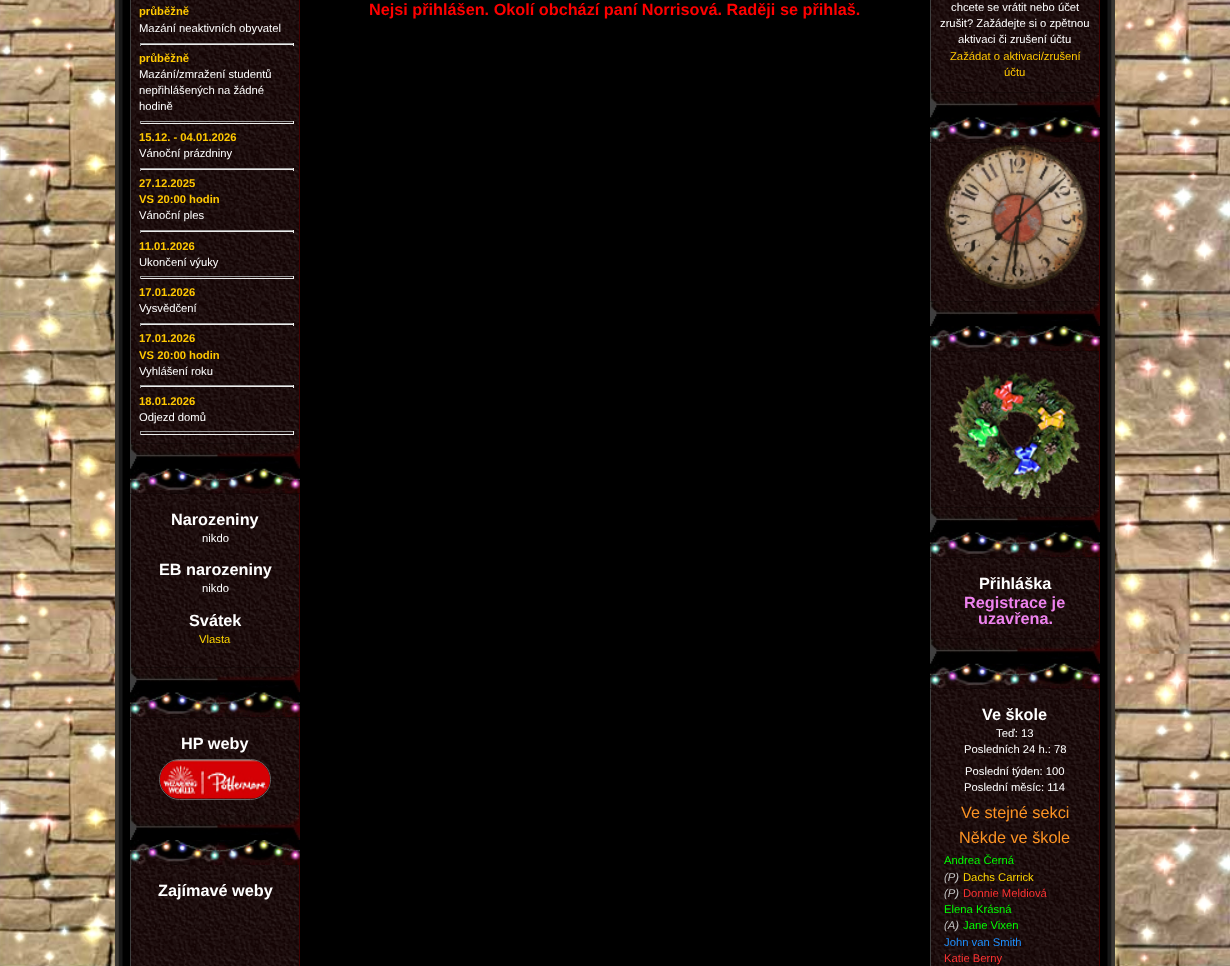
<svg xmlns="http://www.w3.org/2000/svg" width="1230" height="966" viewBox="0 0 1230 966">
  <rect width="100%" height="100%" fill="#fff"/>
  <image x="0" y="0" width="1230" height="966" href="img/1.png"/>
  <image x="115" y="0" width="1000" height="966" href="img/2.png"/>
  <image x="131" y="0" width="168" height="444" href="img/3.png"/>
  <path d="M299 0h1v444H299z" fill="#400000"/>
  <path d="M130 0h1v444H130z" fill="#404040"/>
  <path d="M140 43h154v1H140z" fill="#9f9f9f"/>
  <path d="M293 43h1v3H293z" fill="#eee"/>
  <path d="M140 44h154v1H140z" fill="#eee"/>
  <path d="M140 43h1v3H140z" fill="#9f9f9f"/>
  <path d="M140 121h154v1H140z" fill="#9f9f9f"/>
  <path d="M293 121h1v3H293z" fill="#eee"/>
  <path d="M140 123h154v1H140z" fill="#eee"/>
  <path d="M140 121h1v3H140z" fill="#9f9f9f"/>
  <path d="M140 168h154v1H140z" fill="#9f9f9f"/>
  <path d="M293 168h1v3H293z" fill="#eee"/>
  <path d="M140 169h154v1H140z" fill="#eee"/>
  <path d="M140 168h1v3H140z" fill="#9f9f9f"/>
  <path d="M140 230h154v1H140z" fill="#9f9f9f"/>
  <path d="M293 230h1v3H293z" fill="#eee"/>
  <path d="M140 231h154v1H140z" fill="#eee"/>
  <path d="M140 230h1v3H140z" fill="#9f9f9f"/>
  <path d="M140 276h154v1H140z" fill="#9f9f9f"/>
  <path d="M293 276h1v3H293z" fill="#eee"/>
  <path d="M140 278h154v1H140z" fill="#eee"/>
  <path d="M140 276h1v3H140z" fill="#9f9f9f"/>
  <path d="M140 323h154v1H140z" fill="#9f9f9f"/>
  <path d="M293 323h1v3H293z" fill="#eee"/>
  <path d="M140 324h154v1H140z" fill="#eee"/>
  <path d="M140 323h1v3H140z" fill="#9f9f9f"/>
  <path d="M140 385h154v1H140z" fill="#9f9f9f"/>
  <path d="M293 385h1v3H293z" fill="#eee"/>
  <path d="M140 386h154v1H140z" fill="#eee"/>
  <path d="M140 385h1v3H140z" fill="#9f9f9f"/>
  <path d="M140 431h154v1H140z" fill="#9f9f9f"/>
  <path d="M293 431h1v4H293z" fill="#eee"/>
  <path d="M140 434h154v1H140z" fill="#eee"/>
  <path d="M140 431h1v4H140z" fill="#9f9f9f"/>
  <image x="130" y="443" width="170" height="26" href="img/4.png"/>
  <image x="130" y="468" width="170" height="26" href="img/5.png"/>
  <image x="130" y="493" width="170" height="175" href="img/6.png"/>
  <path d="M299 494h1v174H299z" fill="#400000"/>
  <path d="M130 494h1v174H130z" fill="#404040"/>
  <image x="130" y="667" width="170" height="26" href="img/7.png"/>
  <image x="130" y="692" width="170" height="26" href="img/8.png"/>
  <image x="130" y="717" width="170" height="98" href="img/9.png"/>
  <path d="M299 718h1v97H299z" fill="#400000"/>
  <path d="M130 718h1v97H130z" fill="#404040"/>
  <rect x="159.5" y="759.5" width="111" height="40" rx="20" fill="none" stroke="#666"/>
  <image x="160" y="760" width="110" height="39" href="img/10.png"/>
  <image x="130" y="815" width="170" height="25" href="img/11.png"/>
  <image x="130" y="840" width="170" height="25" href="img/12.png"/>
  <image x="131" y="865" width="168" height="101" href="img/13.png"/>
  <path d="M299 865h1v101H299z" fill="#400000"/>
  <path d="M130 865h1v101H130z" fill="#404040"/>
  <image x="931" y="0" width="168" height="93" href="img/14.png"/>
  <path d="M1099 0h1v93H1099z" fill="#400000"/>
  <path d="M930 0h1v93H930z" fill="#404040"/>
  <image x="930" y="92" width="170" height="26" href="img/15.png"/>
  <image x="930" y="117" width="170" height="26" href="img/16.png"/>
  <image x="930" y="142" width="170" height="160" href="img/17.png"/>
  <path d="M1099 143h1v158H1099z" fill="#400000"/>
  <path d="M930 143h1v158H930z" fill="#404040"/>
  <image x="943" y="145" width="145" height="144" href="img/18.png"/>
  <image x="930" y="301" width="170" height="26" href="img/19.png"/>
  <image x="930" y="326" width="170" height="26" href="img/20.png"/>
  <image x="931" y="351" width="168" height="157" href="img/21.png"/>
  <path d="M1099 351h1v157H1099z" fill="#400000"/>
  <path d="M930 351h1v157H930z" fill="#404040"/>
  <image x="948" y="371" width="133" height="130" href="img/22.png"/>
  <image x="930" y="507" width="170" height="26" href="img/23.png"/>
  <image x="930" y="532" width="170" height="26" href="img/16.png"/>
  <image x="930" y="557" width="170" height="82" href="img/24.png"/>
  <path d="M1099 558h1v81H1099z" fill="#400000"/>
  <path d="M930 558h1v81H930z" fill="#404040"/>
  <image x="930" y="638" width="170" height="26" href="img/25.png"/>
  <image x="930" y="663" width="170" height="26" href="img/26.png"/>
  <image x="930" y="688" width="170" height="278" href="img/27.png"/>
  <path d="M1099 689h1v277H1099z" fill="#400000"/>
  <path d="M930 689h1v277H930z" fill="#404040"/>
  <text x="139" y="15" font-family="Liberation Sans" font-size="11.25" font-weight="bold" fill="#ffc800">průběžně</text>
  <text x="139" y="32" font-family="Liberation Sans" font-size="11.25" fill="#fff">Mazání neaktivních obyvatel</text>
  <text x="139" y="62" font-family="Liberation Sans" font-size="11.25" font-weight="bold" fill="#ffc800">průběžně</text>
  <g font-family="Liberation Sans" font-size="11.25" fill="#fff">
    <text x="139" y="78">Mazání/zmražení studentů</text>
    <text x="139" y="94">nepřihlášených na žádné</text>
    <text x="139" y="110">hodině</text>
  </g>
  <text x="139" y="141" font-family="Liberation Sans" font-size="11.25" font-weight="bold" fill="#ffc800">15.12. - 04.01.2026</text>
  <text x="139" y="157" font-family="Liberation Sans" font-size="11.25" fill="#fff">Vánoční prázdniny</text>
  <g font-family="Liberation Sans" font-size="11.25" font-weight="bold" fill="#ffc800">
    <text x="139" y="187">27.12.2025</text>
    <text x="139" y="203">VS 20:00 hodin</text>
  </g>
  <text x="139" y="219" font-family="Liberation Sans" font-size="11.25" fill="#fff">Vánoční ples</text>
  <text x="139" y="250" font-family="Liberation Sans" font-size="11.25" font-weight="bold" fill="#ffc800">11.01.2026</text>
  <text x="139" y="266" font-family="Liberation Sans" font-size="11.25" fill="#fff">Ukončení výuky</text>
  <text x="139" y="296" font-family="Liberation Sans" font-size="11.25" font-weight="bold" fill="#ffc800">17.01.2026</text>
  <text x="139" y="312" font-family="Liberation Sans" font-size="11.25" fill="#fff">Vysvědčení</text>
  <g font-family="Liberation Sans" font-size="11.25" font-weight="bold" fill="#ffc800">
    <text x="139" y="342">17.01.2026</text>
    <text x="139" y="359">VS 20:00 hodin</text>
  </g>
  <text x="139" y="375" font-family="Liberation Sans" font-size="11.25" fill="#fff">Vyhlášení roku</text>
  <text x="139" y="405" font-family="Liberation Sans" font-size="11.25" font-weight="bold" fill="#ffc800">18.01.2026</text>
  <text x="139" y="421" font-family="Liberation Sans" font-size="11.25" fill="#fff">Odjezd domů</text>
  <text x="171" y="525" font-family="Liberation Sans" font-size="16.25" font-weight="bold" fill="#fff">Narozeniny</text>
  <text x="202" y="542" font-family="Liberation Sans" font-size="11.25" fill="#fff">nikdo</text>
  <text x="159" y="575" font-family="Liberation Sans" font-size="16.25" font-weight="bold" fill="#fff">EB narozeniny</text>
  <text x="202" y="592" font-family="Liberation Sans" font-size="11.25" fill="#fff">nikdo</text>
  <text x="189" y="626" font-family="Liberation Sans" font-size="16.25" font-weight="bold" fill="#fff">Svátek</text>
  <text x="199" y="643" font-family="Liberation Sans" font-size="11.25" fill="#ffd700">Vlasta</text>
  <g font-family="Liberation Sans" font-size="16.25" font-weight="bold" fill="#fff">
    <text x="181" y="749">HP weby</text>
    <text x="158" y="896">Zajímavé weby</text>
  </g>
  <g font-family="Liberation Sans" font-size="11.25" fill="#fff">
    <text x="951" y="11">chcete se vrátit nebo účet</text>
    <text x="940" y="27">zrušit? Zažádejte si o zpětnou</text>
    <text x="958" y="43">aktivaci či zrušení účtu</text>
  </g>
  <g font-family="Liberation Sans" font-size="11.25" fill="#ffc800">
    <text x="950" y="60">Zažádat o aktivaci/zrušení</text>
    <text x="1004" y="76">účtu</text>
  </g>
  <text x="979" y="589" font-family="Liberation Sans" font-size="16.25" font-weight="bold" fill="#fff">Přihláška</text>
  <g font-family="Liberation Sans" font-size="16.25" font-weight="bold" fill="#ee82ee">
    <text x="964" y="608">Registrace je</text>
    <text x="978" y="624">uzavřena.</text>
  </g>
  <text x="982" y="720" font-family="Liberation Sans" font-size="16.25" font-weight="bold" fill="#fff">Ve škole</text>
  <g font-family="Liberation Sans" font-size="11.25" fill="#fff">
    <text x="996" y="737">Teď: 13</text>
    <text x="964" y="753">Posledních 24 h.: 78</text>
    <text x="965" y="775">Poslední týden: 100</text>
    <text x="964" y="791">Poslední měsíc: 114</text>
  </g>
  <g font-family="Liberation Sans" font-size="16.25" fill="#fc9324">
    <text x="961" y="818">Ve stejné sekci</text>
    <text x="959" y="843">Někde ve škole</text>
  </g>
  <text x="944" y="864" font-family="Liberation Sans" font-size="11.25" fill="#0f0">Andrea Černá</text>
  <text x="944" y="881" font-family="Liberation Sans" font-size="11.25" font-style="italic" fill="#c0c0c0">(P)</text>
  <text x="963" y="881" font-family="Liberation Sans" font-size="11.25" fill="#ffd700">Dachs Carrick</text>
  <text x="944" y="897" font-family="Liberation Sans" font-size="11.25" font-style="italic" fill="#c0c0c0">(P)</text>
  <text x="963" y="897" font-family="Liberation Sans" font-size="11.25" fill="#f33">Donnie Meldiová</text>
  <text x="944" y="913" font-family="Liberation Sans" font-size="11.25" fill="#0f0">Elena Krásná</text>
  <text x="944" y="929" font-family="Liberation Sans" font-size="11.25" font-style="italic" fill="#c0c0c0">(A)</text>
  <text x="963" y="929" font-family="Liberation Sans" font-size="11.25" fill="#0f0">Jane Vixen</text>
  <text x="944" y="946" font-family="Liberation Sans" font-size="11.25" fill="#1e90ff">John van Smith</text>
  <text x="944" y="962" font-family="Liberation Sans" font-size="11.25" fill="#f33">Katie Berny</text>
  <text x="369" y="15" font-family="Liberation Sans" font-size="16.25" font-weight="bold" fill="#f00">Nejsi přihlášen. Okolí obchází paní Norrisová. Raději se přihlaš.</text>
</svg>
